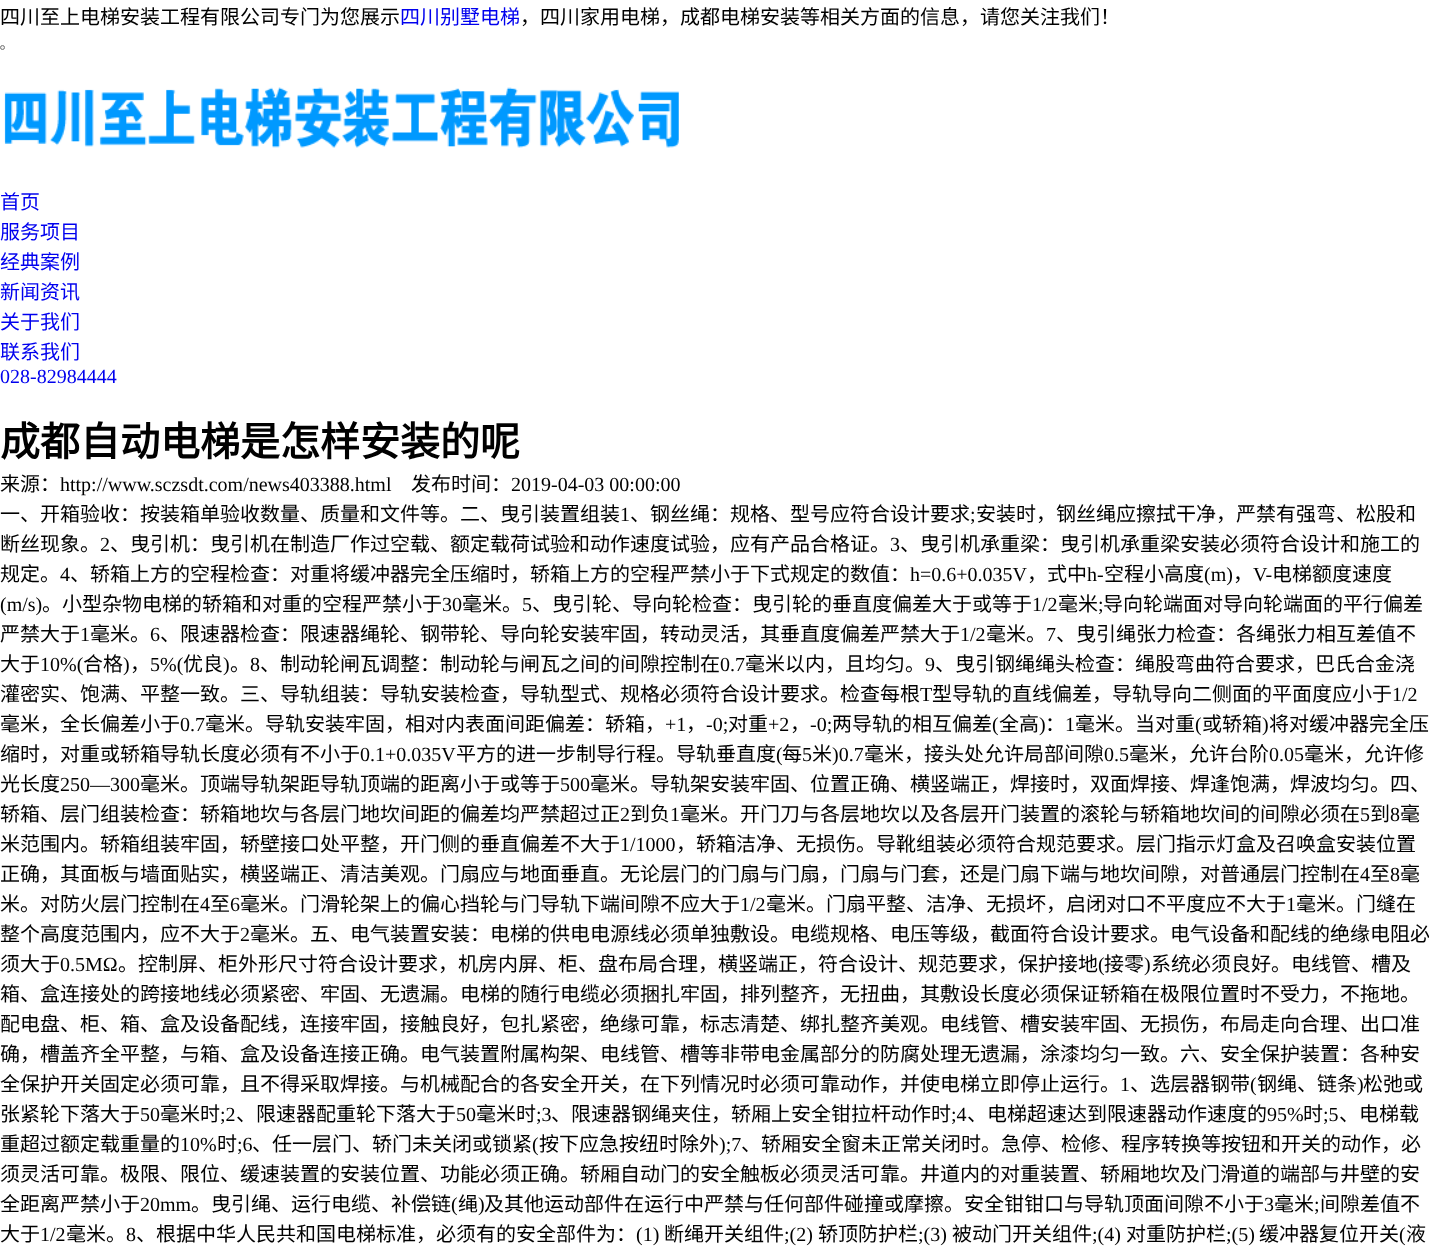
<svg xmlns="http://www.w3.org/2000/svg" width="1429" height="1260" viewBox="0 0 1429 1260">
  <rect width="100%" height="100%" fill="#fff"/>
  <circle cx="2.5" cy="47.5" r="2" fill="#efefef" stroke="#767676"/>
  <image x="4" y="87" width="675" height="61" href="img/1.png"/>
  <text x="0" y="24" font-family="Noto Sans CJK SC" font-size="20" fill="#000">四川至上电梯安装工程有限公司专门为您展示</text>
  <text x="400" y="24" font-family="Noto Sans CJK SC" font-size="20" fill="#00e">四川别墅电梯</text>
  <text x="520" y="24" font-family="Noto Sans CJK SC" font-size="20" fill="#000">，四川家用电梯，成都电梯安装等相关方面的信息，请您关注我们！</text>
  <g font-family="Noto Sans CJK SC" font-size="20" fill="#00e">
    <text x="0" y="209">首页</text>
    <text x="0" y="239">服务项目</text>
    <text x="0" y="269">经典案例</text>
    <text x="0" y="299">新闻资讯</text>
    <text x="0" y="329">关于我们</text>
    <text x="0" y="359">联系我们</text>
  </g>
  <text x="0" y="383" font-family="Liberation Serif" font-size="20" fill="#00e">028-82984444</text>
  <text x="0" y="456" font-family="Noto Sans CJK SC" font-size="40" font-weight="bold" fill="#000">成都自动电梯是怎样安装的呢</text>
  <text x="0" y="491" font-family="Noto Sans CJK SC" font-size="20" fill="#000">来源：</text>
  <text x="60" y="491" font-family="Liberation Serif" font-size="20" fill="#000">http://www.sczsdt.com/news403388.html</text>
  <text x="411" y="491" font-family="Noto Sans CJK SC" font-size="20" fill="#000">发布时间：</text>
  <text x="511" y="491" font-family="Liberation Serif" font-size="20" fill="#000">2019-04-03 00:00:00</text>
  <text x="0" y="521" font-family="Noto Sans CJK SC" font-size="20" fill="#000">一、开箱验收：按装箱单验收数量、质量和文件等。二、曳引装置组装</text>
  <text x="620" y="521" font-family="Liberation Serif" font-size="20" fill="#000">1</text>
  <text x="630" y="521" font-family="Noto Sans CJK SC" font-size="20" fill="#000">、钢丝绳：规格、型号应符合设计要求</text>
  <text x="970" y="521" font-family="Liberation Serif" font-size="20" fill="#000">;</text>
  <g font-family="Noto Sans CJK SC" font-size="20" fill="#000">
    <text x="976" y="521">安装时，钢丝绳应擦拭干净，严禁有强弯、松股和</text>
    <text x="0" y="551">断丝现象。</text>
  </g>
  <text x="100" y="551" font-family="Liberation Serif" font-size="20" fill="#000">2</text>
  <text x="110" y="551" font-family="Noto Sans CJK SC" font-size="20" fill="#000">、曳引机：曳引机在制造厂作过空载、额定载荷试验和动作速度试验，应有产品合格证。</text>
  <text x="890" y="551" font-family="Liberation Serif" font-size="20" fill="#000">3</text>
  <g font-family="Noto Sans CJK SC" font-size="20" fill="#000">
    <text x="900" y="551">、曳引机承重梁：曳引机承重梁安装必须符合设计和施工的</text>
    <text x="0" y="581">规定。</text>
  </g>
  <text x="60" y="581" font-family="Liberation Serif" font-size="20" fill="#000">4</text>
  <text x="70" y="581" font-family="Noto Sans CJK SC" font-size="20" fill="#000">、轿箱上方的空程检查：对重将缓冲器完全压缩时，轿箱上方的空程严禁小于下式规定的数值：</text>
  <text x="910" y="581" font-family="Liberation Serif" font-size="20" fill="#000">h=0.6+0.035V</text>
  <text x="1027" y="581" font-family="Noto Sans CJK SC" font-size="20" fill="#000">，式中</text>
  <text x="1087" y="581" font-family="Liberation Serif" font-size="20" fill="#000">h-</text>
  <text x="1104" y="581" font-family="Noto Sans CJK SC" font-size="20" fill="#000">空程小高度</text>
  <text x="1204" y="581" font-family="Liberation Serif" font-size="20" fill="#000">(m)</text>
  <text x="1233" y="581" font-family="Noto Sans CJK SC" font-size="20" fill="#000">，</text>
  <text x="1253" y="581" font-family="Liberation Serif" font-size="20" fill="#000">V-</text>
  <text x="1272" y="581" font-family="Noto Sans CJK SC" font-size="20" fill="#000">电梯额度速度</text>
  <text x="0" y="611" font-family="Liberation Serif" font-size="20" fill="#000">(m/s)</text>
  <text x="42" y="611" font-family="Noto Sans CJK SC" font-size="20" fill="#000">。小型杂物电梯的轿箱和对重的空程严禁小于</text>
  <text x="442" y="611" font-family="Liberation Serif" font-size="20" fill="#000">30</text>
  <text x="462" y="611" font-family="Noto Sans CJK SC" font-size="20" fill="#000">毫米。</text>
  <text x="522" y="611" font-family="Liberation Serif" font-size="20" fill="#000">5</text>
  <text x="532" y="611" font-family="Noto Sans CJK SC" font-size="20" fill="#000">、曳引轮、导向轮检查：曳引轮的垂直度偏差大于或等于</text>
  <text x="1032" y="611" font-family="Liberation Serif" font-size="20" fill="#000">1/2</text>
  <text x="1058" y="611" font-family="Noto Sans CJK SC" font-size="20" fill="#000">毫米</text>
  <text x="1098" y="611" font-family="Liberation Serif" font-size="20" fill="#000">;</text>
  <g font-family="Noto Sans CJK SC" font-size="20" fill="#000">
    <text x="1103" y="611">导向轮端面对导向轮端面的平行偏差</text>
    <text x="0" y="641">严禁大于</text>
  </g>
  <text x="80" y="641" font-family="Liberation Serif" font-size="20" fill="#000">1</text>
  <text x="90" y="641" font-family="Noto Sans CJK SC" font-size="20" fill="#000">毫米。</text>
  <text x="150" y="641" font-family="Liberation Serif" font-size="20" fill="#000">6</text>
  <text x="160" y="641" font-family="Noto Sans CJK SC" font-size="20" fill="#000">、限速器检查：限速器绳轮、钢带轮、导向轮安装牢固，转动灵活，其垂直度偏差严禁大于</text>
  <text x="960" y="641" font-family="Liberation Serif" font-size="20" fill="#000">1/2</text>
  <text x="986" y="641" font-family="Noto Sans CJK SC" font-size="20" fill="#000">毫米。</text>
  <text x="1046" y="641" font-family="Liberation Serif" font-size="20" fill="#000">7</text>
  <g font-family="Noto Sans CJK SC" font-size="20" fill="#000">
    <text x="1056" y="641">、曳引绳张力检查：各绳张力相互差值不</text>
    <text x="0" y="671">大于</text>
  </g>
  <text x="40" y="671" font-family="Liberation Serif" font-size="20" fill="#000">10%(</text>
  <text x="83" y="671" font-family="Noto Sans CJK SC" font-size="20" fill="#000">合格</text>
  <text x="123" y="671" font-family="Liberation Serif" font-size="20" fill="#000">)</text>
  <text x="130" y="671" font-family="Noto Sans CJK SC" font-size="20" fill="#000">，</text>
  <text x="150" y="671" font-family="Liberation Serif" font-size="20" fill="#000">5%(</text>
  <text x="183" y="671" font-family="Noto Sans CJK SC" font-size="20" fill="#000">优良</text>
  <text x="223" y="671" font-family="Liberation Serif" font-size="20" fill="#000">)</text>
  <text x="230" y="671" font-family="Noto Sans CJK SC" font-size="20" fill="#000">。</text>
  <text x="250" y="671" font-family="Liberation Serif" font-size="20" fill="#000">8</text>
  <text x="260" y="671" font-family="Noto Sans CJK SC" font-size="20" fill="#000">、制动轮闸瓦调整：制动轮与闸瓦之间的间隙控制在</text>
  <text x="720" y="671" font-family="Liberation Serif" font-size="20" fill="#000">0.7</text>
  <text x="745" y="671" font-family="Noto Sans CJK SC" font-size="20" fill="#000">毫米以内，且均匀。</text>
  <text x="925" y="671" font-family="Liberation Serif" font-size="20" fill="#000">9</text>
  <g font-family="Noto Sans CJK SC" font-size="20" fill="#000">
    <text x="935" y="671">、曳引钢绳绳头检查：绳股弯曲符合要求，巴氏合金浇</text>
    <text x="0" y="701">灌密实、饱满、平整一致。三、导轨组装：导轨安装检查，导轨型式、规格必须符合设计要求。检查每根</text>
  </g>
  <text x="920" y="701" font-family="Liberation Serif" font-size="20" fill="#000">T</text>
  <text x="932" y="701" font-family="Noto Sans CJK SC" font-size="20" fill="#000">型导轨的直线偏差，导轨导向二侧面的平面度应小于</text>
  <text x="1392" y="701" font-family="Liberation Serif" font-size="20" fill="#000">1/2</text>
  <text x="0" y="731" font-family="Noto Sans CJK SC" font-size="20" fill="#000">毫米，全长偏差小于</text>
  <text x="180" y="731" font-family="Liberation Serif" font-size="20" fill="#000">0.7</text>
  <text x="205" y="731" font-family="Noto Sans CJK SC" font-size="20" fill="#000">毫米。导轨安装牢固，相对内表面间距偏差：轿箱，</text>
  <text x="665" y="731" font-family="Liberation Serif" font-size="20" fill="#000">+1</text>
  <text x="686" y="731" font-family="Noto Sans CJK SC" font-size="20" fill="#000">，</text>
  <text x="706" y="731" font-family="Liberation Serif" font-size="20" fill="#000">-0;</text>
  <text x="728" y="731" font-family="Noto Sans CJK SC" font-size="20" fill="#000">对重</text>
  <text x="768" y="731" font-family="Liberation Serif" font-size="20" fill="#000">+2</text>
  <text x="790" y="731" font-family="Noto Sans CJK SC" font-size="20" fill="#000">，</text>
  <text x="810" y="731" font-family="Liberation Serif" font-size="20" fill="#000">-0;</text>
  <text x="832" y="731" font-family="Noto Sans CJK SC" font-size="20" fill="#000">两导轨的相互偏差</text>
  <text x="992" y="731" font-family="Liberation Serif" font-size="20" fill="#000">(</text>
  <text x="999" y="731" font-family="Noto Sans CJK SC" font-size="20" fill="#000">全高</text>
  <text x="1039" y="731" font-family="Liberation Serif" font-size="20" fill="#000">)</text>
  <text x="1045" y="731" font-family="Noto Sans CJK SC" font-size="20" fill="#000">：</text>
  <text x="1065" y="731" font-family="Liberation Serif" font-size="20" fill="#000">1</text>
  <text x="1075" y="731" font-family="Noto Sans CJK SC" font-size="20" fill="#000">毫米。当对重</text>
  <text x="1195" y="731" font-family="Liberation Serif" font-size="20" fill="#000">(</text>
  <text x="1202" y="731" font-family="Noto Sans CJK SC" font-size="20" fill="#000">或轿箱</text>
  <text x="1262" y="731" font-family="Liberation Serif" font-size="20" fill="#000">)</text>
  <g font-family="Noto Sans CJK SC" font-size="20" fill="#000">
    <text x="1269" y="731">将对缓冲器完全压</text>
    <text x="0" y="761">缩时，对重或轿箱导轨长度必须有不小于</text>
  </g>
  <text x="360" y="761" font-family="Liberation Serif" font-size="20" fill="#000">0.1+0.035V</text>
  <text x="456" y="761" font-family="Noto Sans CJK SC" font-size="20" fill="#000">平方的进一步制导行程。导轨垂直度</text>
  <text x="776" y="761" font-family="Liberation Serif" font-size="20" fill="#000">(</text>
  <text x="782" y="761" font-family="Noto Sans CJK SC" font-size="20" fill="#000">每</text>
  <text x="802" y="761" font-family="Liberation Serif" font-size="20" fill="#000">5</text>
  <text x="812" y="761" font-family="Noto Sans CJK SC" font-size="20" fill="#000">米</text>
  <text x="832" y="761" font-family="Liberation Serif" font-size="20" fill="#000">)0.7</text>
  <text x="864" y="761" font-family="Noto Sans CJK SC" font-size="20" fill="#000">毫米，接头处允许局部间隙</text>
  <text x="1104" y="761" font-family="Liberation Serif" font-size="20" fill="#000">0.5</text>
  <text x="1129" y="761" font-family="Noto Sans CJK SC" font-size="20" fill="#000">毫米，允许台阶</text>
  <text x="1269" y="761" font-family="Liberation Serif" font-size="20" fill="#000">0.05</text>
  <g font-family="Noto Sans CJK SC" font-size="20" fill="#000">
    <text x="1304" y="761">毫米，允许修</text>
    <text x="0" y="791">光长度</text>
  </g>
  <text x="60" y="791" font-family="Liberation Serif" font-size="20" fill="#000">250—300</text>
  <text x="140" y="791" font-family="Noto Sans CJK SC" font-size="20" fill="#000">毫米。顶端导轨架距导轨顶端的距离小于或等于</text>
  <text x="560" y="791" font-family="Liberation Serif" font-size="20" fill="#000">500</text>
  <g font-family="Noto Sans CJK SC" font-size="20" fill="#000">
    <text x="590" y="791">毫米。导轨架安装牢固、位置正确、横竖端正，焊接时，双面焊接、焊逢饱满，焊波均匀。四、</text>
    <text x="0" y="821">轿箱、层门组装检查：轿箱地坎与各层门地坎间距的偏差均严禁超过正</text>
  </g>
  <text x="620" y="821" font-family="Liberation Serif" font-size="20" fill="#000">2</text>
  <text x="630" y="821" font-family="Noto Sans CJK SC" font-size="20" fill="#000">到负</text>
  <text x="670" y="821" font-family="Liberation Serif" font-size="20" fill="#000">1</text>
  <text x="680" y="821" font-family="Noto Sans CJK SC" font-size="20" fill="#000">毫米。开门刀与各层地坎以及各层开门装置的滚轮与轿箱地坎间的间隙必须在</text>
  <text x="1360" y="821" font-family="Liberation Serif" font-size="20" fill="#000">5</text>
  <text x="1370" y="821" font-family="Noto Sans CJK SC" font-size="20" fill="#000">到</text>
  <text x="1390" y="821" font-family="Liberation Serif" font-size="20" fill="#000">8</text>
  <g font-family="Noto Sans CJK SC" font-size="20" fill="#000">
    <text x="1400" y="821">毫</text>
    <text x="0" y="851">米范围内。轿箱组装牢固，轿壁接口处平整，开门侧的垂直偏差不大于</text>
  </g>
  <text x="620" y="851" font-family="Liberation Serif" font-size="20" fill="#000">1/1000</text>
  <g font-family="Noto Sans CJK SC" font-size="20" fill="#000">
    <text x="676" y="851">，轿箱洁净、无损伤。导靴组装必须符合规范要求。层门指示灯盒及召唤盒安装位置</text>
    <text x="0" y="881">正确，其面板与墙面贴实，横竖端正、清洁美观。门扇应与地面垂直。无论层门的门扇与门扇，门扇与门套，还是门扇下端与地坎间隙，对普通层门控制在</text>
  </g>
  <text x="1360" y="881" font-family="Liberation Serif" font-size="20" fill="#000">4</text>
  <text x="1370" y="881" font-family="Noto Sans CJK SC" font-size="20" fill="#000">至</text>
  <text x="1390" y="881" font-family="Liberation Serif" font-size="20" fill="#000">8</text>
  <g font-family="Noto Sans CJK SC" font-size="20" fill="#000">
    <text x="1400" y="881">毫</text>
    <text x="0" y="911">米。对防火层门控制在</text>
  </g>
  <text x="200" y="911" font-family="Liberation Serif" font-size="20" fill="#000">4</text>
  <text x="210" y="911" font-family="Noto Sans CJK SC" font-size="20" fill="#000">至</text>
  <text x="230" y="911" font-family="Liberation Serif" font-size="20" fill="#000">6</text>
  <text x="240" y="911" font-family="Noto Sans CJK SC" font-size="20" fill="#000">毫米。门滑轮架上的偏心挡轮与门导轨下端间隙不应大于</text>
  <text x="740" y="911" font-family="Liberation Serif" font-size="20" fill="#000">1/2</text>
  <text x="766" y="911" font-family="Noto Sans CJK SC" font-size="20" fill="#000">毫米。门扇平整、洁净、无损坏，启闭对口不平度应不大于</text>
  <text x="1286" y="911" font-family="Liberation Serif" font-size="20" fill="#000">1</text>
  <g font-family="Noto Sans CJK SC" font-size="20" fill="#000">
    <text x="1296" y="911">毫米。门缝在</text>
    <text x="0" y="941">整个高度范围内，应不大于</text>
  </g>
  <text x="240" y="941" font-family="Liberation Serif" font-size="20" fill="#000">2</text>
  <g font-family="Noto Sans CJK SC" font-size="20" fill="#000">
    <text x="250" y="941">毫米。五、电气装置安装：电梯的供电电源线必须单独敷设。电缆规格、电压等级，截面符合设计要求。电气设备和配线的绝缘电阻必</text>
    <text x="0" y="971">须大于</text>
  </g>
  <text x="60" y="971" font-family="Liberation Serif" font-size="20" fill="#000">0.5MΩ</text>
  <text x="118" y="971" font-family="Noto Sans CJK SC" font-size="20" fill="#000">。控制屏、柜外形尺寸符合设计要求，机房内屏、柜、盘布局合理，横竖端正，符合设计、规范要求，保护接地</text>
  <text x="1098" y="971" font-family="Liberation Serif" font-size="20" fill="#000">(</text>
  <text x="1104" y="971" font-family="Noto Sans CJK SC" font-size="20" fill="#000">接零</text>
  <text x="1144" y="971" font-family="Liberation Serif" font-size="20" fill="#000">)</text>
  <g font-family="Noto Sans CJK SC" font-size="20" fill="#000">
    <text x="1151" y="971">系统必须良好。电线管、槽及</text>
    <text x="0" y="1001">箱、盒连接处的跨接地线必须紧密、牢固、无遗漏。电梯的随行电缆必须捆扎牢固，排列整齐，无扭曲，其敷设长度必须保证轿箱在极限位置时不受力，不拖地。</text>
    <text x="0" y="1031">配电盘、柜、箱、盒及设备配线，连接牢固，接触良好，包扎紧密，绝缘可靠，标志清楚、绑扎整齐美观。电线管、槽安装牢固、无损伤，布局走向合理、出口准</text>
    <text x="0" y="1061">确，槽盖齐全平整，与箱、盒及设备连接正确。电气装置附属构架、电线管、槽等非带电金属部分的防腐处理无遗漏，涂漆均匀一致。六、安全保护装置：各种安</text>
    <text x="0" y="1091">全保护开关固定必须可靠，且不得采取焊接。与机械配合的各安全开关，在下列情况时必须可靠动作，并使电梯立即停止运行。</text>
  </g>
  <text x="1120" y="1091" font-family="Liberation Serif" font-size="20" fill="#000">1</text>
  <text x="1130" y="1091" font-family="Noto Sans CJK SC" font-size="20" fill="#000">、选层器钢带</text>
  <text x="1250" y="1091" font-family="Liberation Serif" font-size="20" fill="#000">(</text>
  <text x="1257" y="1091" font-family="Noto Sans CJK SC" font-size="20" fill="#000">钢绳、链条</text>
  <text x="1357" y="1091" font-family="Liberation Serif" font-size="20" fill="#000">)</text>
  <g font-family="Noto Sans CJK SC" font-size="20" fill="#000">
    <text x="1363" y="1091">松弛或</text>
    <text x="0" y="1121">张紧轮下落大于</text>
  </g>
  <text x="140" y="1121" font-family="Liberation Serif" font-size="20" fill="#000">50</text>
  <text x="160" y="1121" font-family="Noto Sans CJK SC" font-size="20" fill="#000">毫米时</text>
  <text x="220" y="1121" font-family="Liberation Serif" font-size="20" fill="#000">;2</text>
  <text x="236" y="1121" font-family="Noto Sans CJK SC" font-size="20" fill="#000">、限速器配重轮下落大于</text>
  <text x="456" y="1121" font-family="Liberation Serif" font-size="20" fill="#000">50</text>
  <text x="476" y="1121" font-family="Noto Sans CJK SC" font-size="20" fill="#000">毫米时</text>
  <text x="536" y="1121" font-family="Liberation Serif" font-size="20" fill="#000">;3</text>
  <text x="551" y="1121" font-family="Noto Sans CJK SC" font-size="20" fill="#000">、限速器钢绳夹住，轿厢上安全钳拉杆动作时</text>
  <text x="951" y="1121" font-family="Liberation Serif" font-size="20" fill="#000">;4</text>
  <text x="967" y="1121" font-family="Noto Sans CJK SC" font-size="20" fill="#000">、电梯超速达到限速器动作速度的</text>
  <text x="1267" y="1121" font-family="Liberation Serif" font-size="20" fill="#000">95%</text>
  <text x="1303" y="1121" font-family="Noto Sans CJK SC" font-size="20" fill="#000">时</text>
  <text x="1323" y="1121" font-family="Liberation Serif" font-size="20" fill="#000">;5</text>
  <g font-family="Noto Sans CJK SC" font-size="20" fill="#000">
    <text x="1339" y="1121">、电梯载</text>
    <text x="0" y="1151">重超过额定载重量的</text>
  </g>
  <text x="180" y="1151" font-family="Liberation Serif" font-size="20" fill="#000">10%</text>
  <text x="217" y="1151" font-family="Noto Sans CJK SC" font-size="20" fill="#000">时</text>
  <text x="237" y="1151" font-family="Liberation Serif" font-size="20" fill="#000">;6</text>
  <text x="252" y="1151" font-family="Noto Sans CJK SC" font-size="20" fill="#000">、任一层门、轿门未关闭或锁紧</text>
  <text x="532" y="1151" font-family="Liberation Serif" font-size="20" fill="#000">(</text>
  <text x="539" y="1151" font-family="Noto Sans CJK SC" font-size="20" fill="#000">按下应急按纽时除外</text>
  <text x="719" y="1151" font-family="Liberation Serif" font-size="20" fill="#000">);7</text>
  <g font-family="Noto Sans CJK SC" font-size="20" fill="#000">
    <text x="741" y="1151">、轿厢安全窗未正常关闭时。急停、检修、程序转换等按钮和开关的动作，必</text>
    <text x="0" y="1181">须灵活可靠。极限、限位、缓速装置的安装位置、功能必须正确。轿厢自动门的安全触板必须灵活可靠。井道内的对重装置、轿厢地坎及门滑道的端部与井壁的安</text>
    <text x="0" y="1211">全距离严禁小于</text>
  </g>
  <text x="140" y="1211" font-family="Liberation Serif" font-size="20" fill="#000">20mm</text>
  <text x="191" y="1211" font-family="Noto Sans CJK SC" font-size="20" fill="#000">。曳引绳、运行电缆、补偿链</text>
  <text x="451" y="1211" font-family="Liberation Serif" font-size="20" fill="#000">(</text>
  <text x="458" y="1211" font-family="Noto Sans CJK SC" font-size="20" fill="#000">绳</text>
  <text x="478" y="1211" font-family="Liberation Serif" font-size="20" fill="#000">)</text>
  <text x="484" y="1211" font-family="Noto Sans CJK SC" font-size="20" fill="#000">及其他运动部件在运行中严禁与任何部件碰撞或摩擦。安全钳钳口与导轨顶面间隙不小于</text>
  <text x="1264" y="1211" font-family="Liberation Serif" font-size="20" fill="#000">3</text>
  <text x="1274" y="1211" font-family="Noto Sans CJK SC" font-size="20" fill="#000">毫米</text>
  <text x="1314" y="1211" font-family="Liberation Serif" font-size="20" fill="#000">;</text>
  <g font-family="Noto Sans CJK SC" font-size="20" fill="#000">
    <text x="1320" y="1211">间隙差值不</text>
    <text x="0" y="1241">大于</text>
  </g>
  <text x="40" y="1241" font-family="Liberation Serif" font-size="20" fill="#000">1/2</text>
  <text x="66" y="1241" font-family="Noto Sans CJK SC" font-size="20" fill="#000">毫米。</text>
  <text x="126" y="1241" font-family="Liberation Serif" font-size="20" fill="#000">8</text>
  <text x="136" y="1241" font-family="Noto Sans CJK SC" font-size="20" fill="#000">、根据中华人民共和国电梯标准，必须有的安全部件为：</text>
  <text x="636" y="1241" font-family="Liberation Serif" font-size="20" fill="#000">(1)</text>
  <text x="664" y="1241" font-family="Noto Sans CJK SC" font-size="20" fill="#000">断绳开关组件</text>
  <text x="784" y="1241" font-family="Liberation Serif" font-size="20" fill="#000">;(2)</text>
  <text x="818" y="1241" font-family="Noto Sans CJK SC" font-size="20" fill="#000">轿顶防护栏</text>
  <text x="918" y="1241" font-family="Liberation Serif" font-size="20" fill="#000">;(3)</text>
  <text x="952" y="1241" font-family="Noto Sans CJK SC" font-size="20" fill="#000">被动门开关组件</text>
  <text x="1092" y="1241" font-family="Liberation Serif" font-size="20" fill="#000">;(4)</text>
  <text x="1126" y="1241" font-family="Noto Sans CJK SC" font-size="20" fill="#000">对重防护栏</text>
  <text x="1226" y="1241" font-family="Liberation Serif" font-size="20" fill="#000">;(5)</text>
  <text x="1259" y="1241" font-family="Noto Sans CJK SC" font-size="20" fill="#000">缓冲器复位开关</text>
  <text x="1399" y="1241" font-family="Liberation Serif" font-size="20" fill="#000">(</text>
  <text x="1406" y="1241" font-family="Noto Sans CJK SC" font-size="20" fill="#000">液</text>
</svg>
